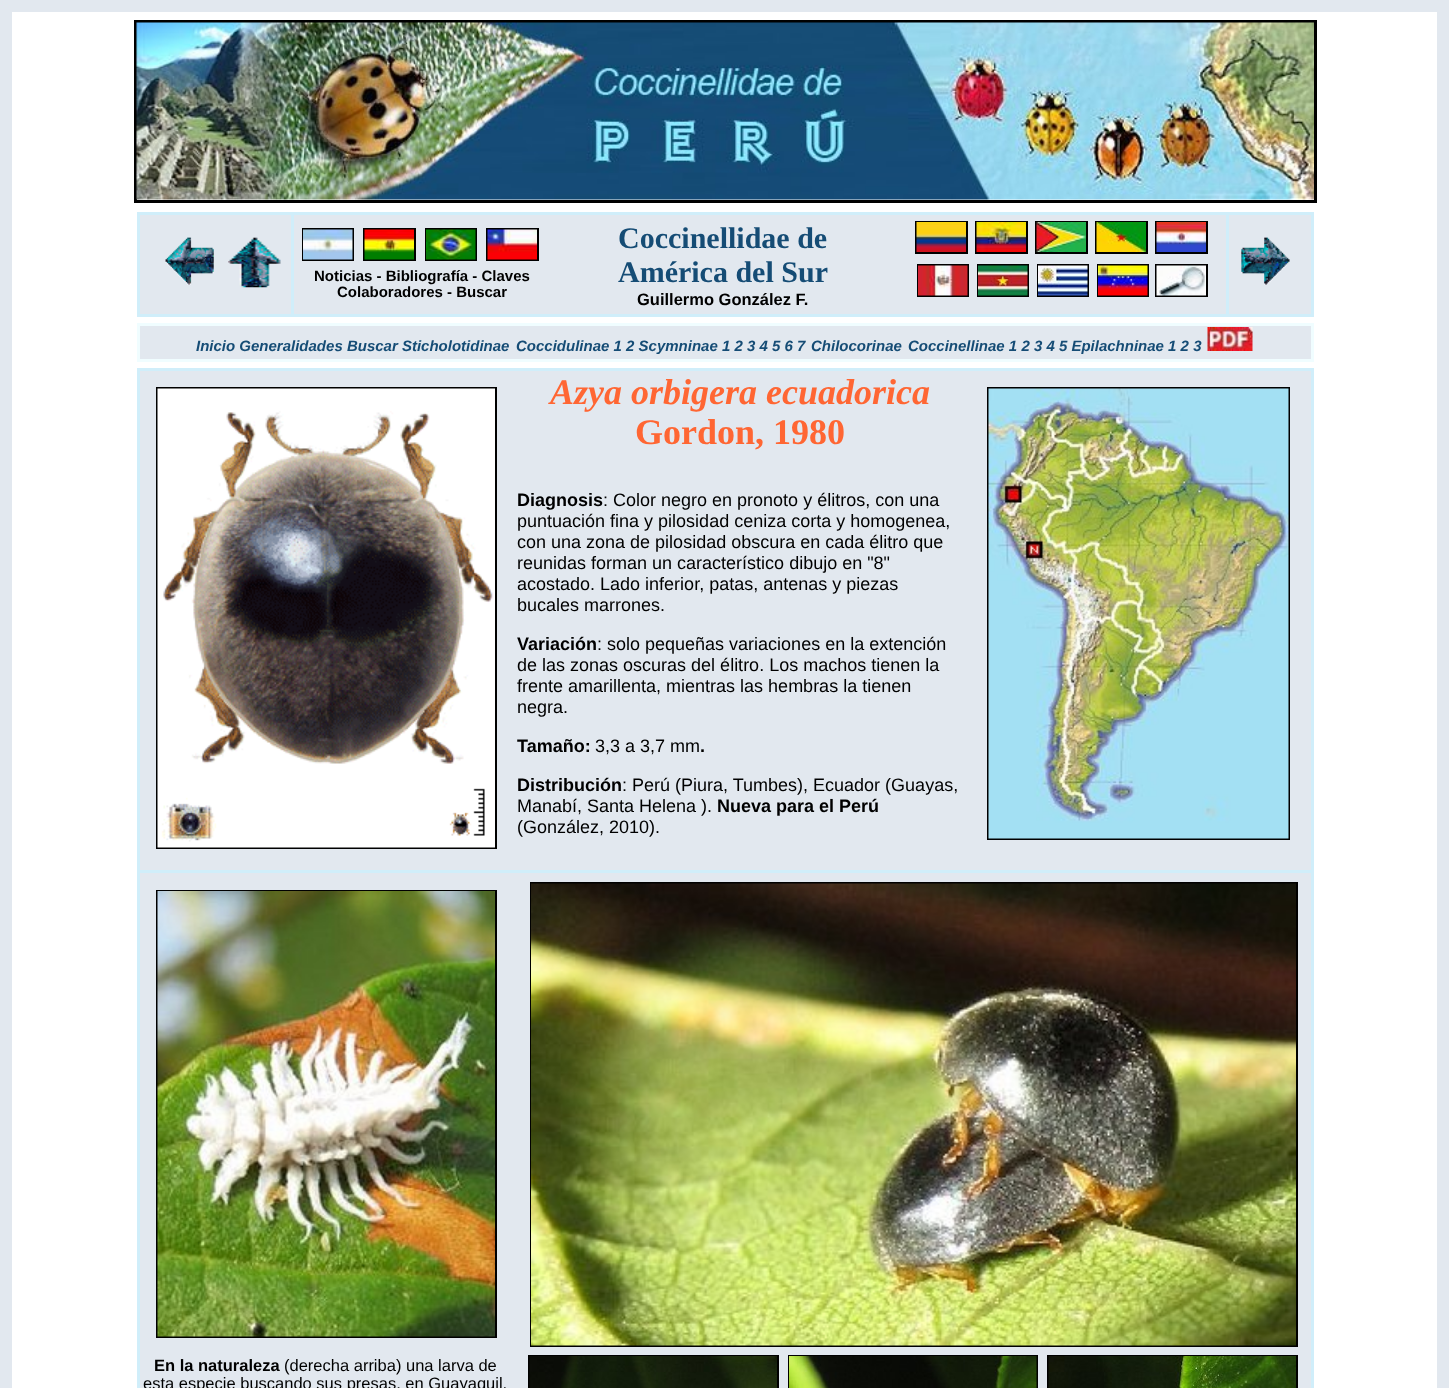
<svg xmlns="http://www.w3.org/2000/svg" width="1449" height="1388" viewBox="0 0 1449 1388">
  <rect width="100%" height="100%" fill="#e2e8ef"/>
  <path d="M12 12h1425v1376H12z" fill="#fff"/>
  <path d="M135.5 21.5h1180v180H135.5z" fill="none" stroke="#000" stroke-width="3"/>
  <image x="136" y="22" width="1178" height="178" href="img/1.png"/>
  <path d="M137 212h1177v105H137z" fill="#d0eefa"/>
  <path d="M140 215h151v99H140z" fill="#e2e8ef"/>
  <image x="165" y="237" width="49" height="48" href="img/2.png"/>
  <image x="228" y="237" width="53" height="51" href="img/3.png"/>
  <path d="M294 215h932v99H294z" fill="#e2e8ef"/>
  <path d="M303 229h50v31H303z" fill="none" stroke="#000" stroke-width="2"/>
  <path d="M364 229h51v31H364z" fill="none" stroke="#000" stroke-width="2"/>
  <path d="M426 229h50v31H426z" fill="none" stroke="#000" stroke-width="2"/>
  <path d="M487 229h51v31H487z" fill="none" stroke="#000" stroke-width="2"/>
  <image x="303" y="229" width="50" height="31" href="img/4.png"/>
  <image x="364" y="229" width="50" height="31" href="img/5.png"/>
  <image x="426" y="229" width="50" height="31" href="img/6.png"/>
  <image x="487" y="229" width="50" height="31" href="img/7.png"/>
  <path d="M916 222h51v31H916z" fill="none" stroke="#000" stroke-width="2"/>
  <path d="M976 222h51v31H976z" fill="none" stroke="#000" stroke-width="2"/>
  <path d="M1036 222h51v31H1036z" fill="none" stroke="#000" stroke-width="2"/>
  <path d="M1096 222h51v31H1096z" fill="none" stroke="#000" stroke-width="2"/>
  <path d="M1156 222h51v31H1156z" fill="none" stroke="#000" stroke-width="2"/>
  <image x="916" y="222" width="50" height="30" href="img/8.png"/>
  <image x="976" y="222" width="50" height="30" href="img/9.png"/>
  <image x="1036" y="222" width="50" height="30" href="img/10.png"/>
  <image x="1096" y="222" width="50" height="30" href="img/11.png"/>
  <image x="1156" y="222" width="50" height="30" href="img/12.png"/>
  <path d="M918 265h50v31H918z" fill="none" stroke="#000" stroke-width="2"/>
  <path d="M978 265h50v31H978z" fill="none" stroke="#000" stroke-width="2"/>
  <path d="M1038 265h50v31H1038z" fill="none" stroke="#000" stroke-width="2"/>
  <path d="M1098 265h50v31H1098z" fill="none" stroke="#000" stroke-width="2"/>
  <path d="M1156 265h51v31H1156z" fill="none" stroke="#000" stroke-width="2"/>
  <image x="918" y="265" width="50" height="31" href="img/13.png"/>
  <image x="978" y="265" width="50" height="31" href="img/14.png"/>
  <image x="1038" y="265" width="50" height="31" href="img/15.png"/>
  <image x="1098" y="265" width="50" height="31" href="img/16.png"/>
  <image x="1156" y="265" width="50" height="31" href="img/17.png"/>
  <path d="M1229 215h82v99H1229z" fill="#e2e8ef"/>
  <image x="1241" y="237" width="49" height="48" href="img/18.png"/>
  <path d="M137 323h1177v39H137z" fill="#f0fdff"/>
  <path d="M140 326h1171v33H140z" fill="#e2e8ef"/>
  <image x="1207" y="327" width="46" height="24" href="img/19.png"/>
  <path d="M137 368h1177v1020H137z" fill="#d0eefa"/>
  <path d="M140 371h1171v499H140z" fill="#e2e8ef"/>
  <path d="M157 388h339v460H157z" fill="none" stroke="#000" stroke-width="2"/>
  <image x="157" y="388" width="338" height="460" href="img/20.png"/>
  <path d="M988 388h301v451H988z" fill="none" stroke="#000" stroke-width="2"/>
  <image x="988" y="388" width="301" height="451" href="img/21.png"/>
  <path d="M140 873h1171v515H140z" fill="#e2e8ef"/>
  <path d="M157 891h339v446H157z" fill="none" stroke="#000" stroke-width="2"/>
  <image x="157" y="891" width="338" height="446" href="img/22.png"/>
  <path d="M531 883h766v463H531z" fill="none" stroke="#000" stroke-width="2"/>
  <image x="531" y="883" width="765" height="463" href="img/23.png"/>
  <path d="M529 1356h249v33H529z" fill="none" stroke="#000" stroke-width="2"/>
  <path d="M789 1356h248v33H789z" fill="none" stroke="#000" stroke-width="2"/>
  <path d="M1048 1356h249v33H1048z" fill="none" stroke="#000" stroke-width="2"/>
  <image x="529" y="1356" width="248" height="32" href="img/24.png"/>
  <image x="789" y="1356" width="248" height="32" href="img/25.png"/>
  <image x="1048" y="1356" width="248" height="32" href="img/26.png"/>
  <g font-family="Liberation Sans" font-size="15" font-weight="bold" fill="#000">
    <text x="314" y="281">Noticias - Bibliografía - Claves</text>
    <text x="337" y="297">Colaboradores - Buscar</text>
  </g>
  <g font-family="Liberation Serif" font-size="30" font-weight="bold" fill="#154c75">
    <text x="618" y="248">Coccinellidae de</text>
    <text x="618" y="282">América del Sur</text>
  </g>
  <text x="637" y="305" font-family="Liberation Sans" font-size="16.5" font-weight="bold" fill="#000">Guillermo González F.</text>
  <g font-family="Liberation Sans" font-size="15" font-weight="bold" font-style="italic" fill="#154c75">
    <text x="196" y="351">Inicio Generalidades Buscar Sticholotidinae</text>
    <text x="516" y="351">Coccidulinae 1 2 Scymninae 1 2 3 4 5 6 7</text>
    <text x="811" y="351">Chilocorinae</text>
    <text x="908" y="351">Coccinellinae 1 2 3 4 5 Epilachninae 1 2 3</text>
  </g>
  <text x="550" y="404" font-family="Liberation Serif" font-size="36" font-weight="bold" font-style="italic" fill="#f63">Azya orbigera ecuadorica</text>
  <text x="635" y="444" font-family="Liberation Serif" font-size="36" font-weight="bold" fill="#f63">Gordon, 1980</text>
  <text x="517" y="506" font-family="Liberation Sans" font-size="18" font-weight="bold" fill="#000">Diagnosis</text>
  <g font-family="Liberation Sans" font-size="18" fill="#000">
    <text x="603" y="506">: Color negro en pronoto y élitros, con una</text>
    <text x="517" y="527">puntuación fina y pilosidad ceniza corta y homogenea,</text>
    <text x="517" y="548">con una zona de pilosidad obscura en cada élitro que</text>
    <text x="517" y="569">reunidas forman un característico dibujo en "8"</text>
    <text x="517" y="590">acostado. Lado inferior, patas, antenas y piezas</text>
    <text x="517" y="611">bucales marrones.</text>
  </g>
  <text x="517" y="650" font-family="Liberation Sans" font-size="18" font-weight="bold" fill="#000">Variación</text>
  <g font-family="Liberation Sans" font-size="18" fill="#000">
    <text x="597" y="650">: solo pequeñas variaciones en la extención</text>
    <text x="517" y="671">de las zonas oscuras del élitro. Los machos tienen la</text>
    <text x="517" y="692">frente amarillenta, mientras las hembras la tienen</text>
    <text x="517" y="713">negra.</text>
  </g>
  <text x="517" y="752" font-family="Liberation Sans" font-size="18" font-weight="bold" fill="#000">Tamaño:</text>
  <text x="595" y="752" font-family="Liberation Sans" font-size="18" fill="#000">3,3 a 3,7 mm</text>
  <g font-family="Liberation Sans" font-size="18" font-weight="bold" fill="#000">
    <text x="700" y="752">.</text>
    <text x="517" y="791">Distribución</text>
  </g>
  <g font-family="Liberation Sans" font-size="18" fill="#000">
    <text x="622" y="791">: Perú (Piura, Tumbes), Ecuador (Guayas,</text>
    <text x="517" y="812">Manabí, Santa Helena ).</text>
  </g>
  <text x="717" y="812" font-family="Liberation Sans" font-size="18" font-weight="bold" fill="#000">Nueva para el Perú</text>
  <text x="517" y="833" font-family="Liberation Sans" font-size="18" fill="#000">(González, 2010).</text>
  <text x="154" y="1371" font-family="Liberation Sans" font-size="16.5" font-weight="bold" fill="#000">En la naturaleza</text>
  <g font-family="Liberation Sans" font-size="16.5" fill="#000">
    <text x="284" y="1371">(derecha arriba) una larva de</text>
    <text x="143" y="1389">esta especie buscando sus presas, en Guayaquil,</text>
  </g>
</svg>
